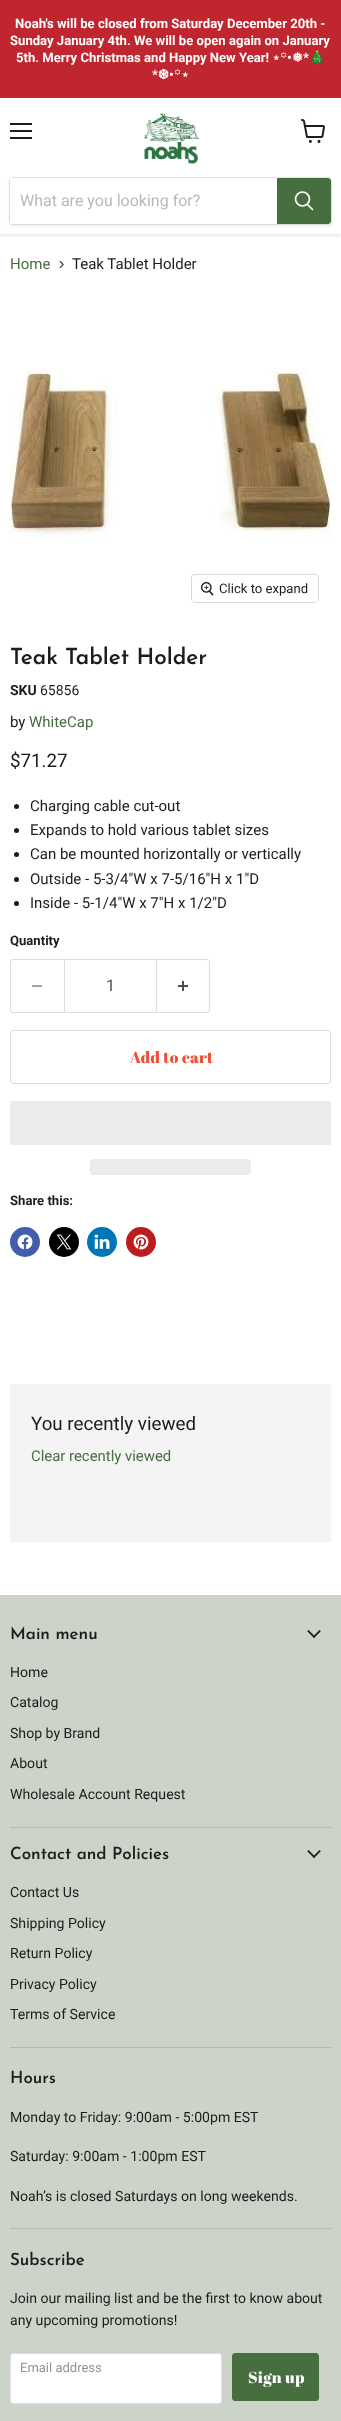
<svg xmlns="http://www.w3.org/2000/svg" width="341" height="2421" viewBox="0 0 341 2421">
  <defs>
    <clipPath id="clip1"><path d="M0 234h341v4H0z"/></clipPath>
  </defs>
  <rect width="100%" height="100%" fill="#fff"/>
  <g clip-path="url(#clip1)">
    <path d="M0 99h341v136H0z" fill="#80808040" filter="blur(2px)"/>
  </g>
  <path d="M0 0h341v98H0z" fill="#bf262f"/>
  <path d="M10 123h22v2H10z" fill="#1d1d1d"/>
  <path d="M10 130h22v2H10z" fill="#1d1d1d"/>
  <path d="M10 137h22v2H10z" fill="#1d1d1d"/>
  <image x="301" y="119" width="24" height="24" href="img/1.png"/>
  <image x="144" y="113" width="55" height="51" href="img/2.png"/>
  <rect x="9" y="179" width="323" height="48" rx="4" fill="#8080801c" filter="blur(1.5px)"/>
  <rect x="9.5" y="177.5" width="322" height="47" rx="3.5" fill="none" stroke="#80808033"/>
  <path d="M10 178h267v46H10z" fill="#fff"/>
  <path d="M277.5 178.5H328C329.5 178.5 330.5 179.5 330.5 181V221C330.5 222.5 329.5 223.5 328 223.5H277.5Z" fill="#476e3f" stroke="#476e3f"/>
  <path d="M312.5 209.5L307.5 204.5" fill="none" stroke="#fff" stroke-width="1.7" stroke-linecap="round"/>
  <circle cx="302.5" cy="199" r="7" fill="none" stroke="#fff" stroke-width="1.7"/>
  <image x="59" y="260" width="5" height="8" href="img/3.png"/>
  <image x="10" y="368" width="321" height="169" href="img/4.png"/>
  <rect x="191.5" y="574.5" width="127" height="28" rx="3.5" fill="none" stroke="#d9d9d9"/>
  <rect x="192" y="575" width="126" height="27" rx="3" fill="#ffffffe6"/>
  <image x="201" y="582" width="13" height="14" href="img/5.png"/>
  <circle cx="16.5" cy="806.5" r="2.5" fill="#1d1d1d"/>
  <circle cx="16.5" cy="830.5" r="2.5" fill="#1d1d1d"/>
  <circle cx="16.5" cy="854.5" r="2.5" fill="#1d1d1d"/>
  <circle cx="16.5" cy="879.5" r="2.5" fill="#1d1d1d"/>
  <circle cx="16.5" cy="903.5" r="2.5" fill="#1d1d1d"/>
  <path d="M13 959H64V1013H13C11 1013 10 1012 10 1010V962C10 960 11 959 13 959ZM13 960H64V1012H13C12 1012 11 1011 11 1010V962C11 961 12 960 13 960Z" fill="#ddd" fill-rule="evenodd"/>
  <path d="M32 985h10v2H32z" fill="#a6a6a6"/>
  <path d="M64.5 959.5h92v53H64.5z" fill="none" stroke="#ddd"/>
  <path d="M157 959H207C209 959 210 960 210 962V1010C210 1012 209 1013 207 1013H157ZM157 960H207C208 960 209 961 209 962V1010C209 1011 208 1012 207 1012H157Z" fill="#ddd" fill-rule="evenodd"/>
  <image x="178" y="981" width="10" height="10" href="img/6.png"/>
  <rect x="10.5" y="1030.5" width="320" height="53" rx="2.5" fill="none" stroke="#ddd"/>
  <path d="M10 1101h321v44H10z" fill="#ebebeb"/>
  <rect x="90" y="1159" width="161" height="16" rx="4" fill="#ebebeb"/>
  <circle cx="25" cy="1242" r="15" fill="#425dab"/>
  <image x="17" y="1234" width="16" height="16" href="img/7.png"/>
  <circle cx="64" cy="1242" r="15" fill="#000"/>
  <image x="56" y="1234" width="16" height="16" href="img/8.png"/>
  <circle cx="102" cy="1242" r="15" fill="#0077b5"/>
  <image x="94" y="1234" width="16" height="15" href="img/9.png"/>
  <circle cx="141" cy="1242" r="15" fill="#bd1c1c"/>
  <image x="133" y="1234" width="16" height="16" href="img/10.png"/>
  <path d="M10 1384h321v158H10z" fill="#f4f4f4"/>
  <path d="M0 1595h341v826H0z" fill="#ccd4c9"/>
  <path d="M10 1827h321v1H10z" fill="#b2b9af"/>
  <image x="307" y="1630" width="14" height="8" href="img/11.png"/>
  <path d="M10 2047h321v1H10z" fill="#b2b9af"/>
  <image x="307" y="1850" width="14" height="8" href="img/11.png"/>
  <path d="M10 2228h321v1H10z" fill="#b2b9af"/>
  <rect x="10.5" y="2353.5" width="211" height="50" rx="2.5" fill="#fff" stroke="#ddd"/>
  <rect x="232.5" y="2353.5" width="86" height="47" rx="2.5" fill="#476e3f" stroke="#476e3f"/>
  <g font-family="Roboto" font-size="13.1" font-weight="bold" fill="#fff">
    <text x="15" y="28">Noah's will be closed from Saturday December 20th -</text>
    <text x="10" y="45">Sunday January 4th. We will be open again on January</text>
    <text x="16" y="62">5th. Merry Christmas and Happy New Year!</text>
  </g>
  <text x="272" y="62" font-family="DejaVu Sans" font-size="13.1" font-weight="bold" fill="#fff">⋆</text>
  <text x="280" y="62" font-family="Noto Sans" font-size="13.1" font-weight="bold" fill="#fff">꙳</text>
  <text x="287" y="62" font-family="Roboto" font-size="13.1" font-weight="bold" fill="#fff">•</text>
  <text x="292" y="62" font-family="DejaVu Sans" font-size="13.1" font-weight="bold" fill="#fff">❅</text>
  <text x="303" y="62" font-family="Roboto" font-size="13.1" font-weight="bold" fill="#fff">*</text>
  <text x="309" y="62" font-family="Noto Color Emoji" font-size="13.1" font-weight="bold" fill="#fff">🎄</text>
  <text x="152" y="79" font-family="Roboto" font-size="13.1" font-weight="bold" fill="#fff">*</text>
  <text x="158" y="79" font-family="DejaVu Sans" font-size="13.1" font-weight="bold" fill="#fff">❆</text>
  <text x="169" y="79" font-family="Roboto" font-size="13.1" font-weight="bold" fill="#fff">•</text>
  <text x="174" y="79" font-family="Noto Sans" font-size="13.1" font-weight="bold" fill="#fff">꙳</text>
  <text x="181" y="79" font-family="DejaVu Sans" font-size="13.1" font-weight="bold" fill="#fff">⋆</text>
  <text x="20" y="206" font-family="Roboto" font-size="16" fill="#b8b8b8">What are you looking for?</text>
  <text x="10" y="269" font-family="Roboto" font-size="15" fill="#476e3f">Home</text>
  <text x="72" y="269" font-family="Roboto" font-size="15" fill="#1d1d1d">Teak Tablet Holder</text>
  <text x="219" y="593" font-family="Roboto" font-size="13.1" fill="#1d1d1d">Click to expand</text>
  <text x="10" y="664" font-family="Josefin Sans" font-size="22.5" font-weight="600" fill="#1d1d1d">Teak Tablet Holder</text>
  <text x="10" y="695" font-family="Roboto" font-size="14" font-weight="bold" fill="#1d1d1d">SKU</text>
  <text x="40" y="695" font-family="Roboto" font-size="14" fill="#1d1d1d">65856</text>
  <text x="10" y="727" font-family="Roboto" font-size="15" fill="#1d1d1d">by</text>
  <text x="29" y="727" font-family="Roboto" font-size="15" fill="#476e3f">WhiteCap</text>
  <text x="10" y="767" font-family="Roboto" font-size="18.75" fill="#1d1d1d">$71.27</text>
  <g font-family="Roboto" font-size="15" fill="#1d1d1d">
    <text x="30" y="811">Charging cable cut-out</text>
    <text x="30" y="835">Expands to hold various tablet sizes</text>
    <text x="30" y="859">Can be mounted horizontally or vertically</text>
    <text x="30" y="884">Outside - 5-3/4"W x 7-5/16"H x 1"D</text>
    <text x="30" y="908">Inside - 5-1/4"W x 7"H x 1/2"D</text>
  </g>
  <text x="10" y="945" font-family="Roboto" font-size="13.1" font-weight="bold" fill="#1d1d1d">Quantity</text>
  <text x="106" y="991" font-family="Roboto" font-size="16" fill="#4d4d4d">1</text>
  <text x="130" y="1063" font-family="Abril Fatface" font-size="16" letter-spacing="0.25" fill="#f04f36">Add to cart</text>
  <text x="10" y="1205" font-family="Roboto" font-size="13.1" font-weight="bold" fill="#1d1d1d">Share this:</text>
  <text x="31" y="1430" font-family="Roboto" font-size="18.75" fill="#1d1d1d">You recently viewed</text>
  <text x="31" y="1461" font-family="Roboto" font-size="14.9" fill="#476e3f">Clear recently viewed</text>
  <text x="10" y="1639" font-family="Josefin Sans" font-size="16.9" font-weight="600" fill="#1d1d1d">Main menu</text>
  <g font-family="Roboto" font-size="14.1" fill="#1d1d1d">
    <text x="10" y="1677">Home</text>
    <text x="10" y="1707">Catalog</text>
    <text x="10" y="1738">Shop by Brand</text>
    <text x="10" y="1768">About</text>
    <text x="10" y="1799">Wholesale Account Request</text>
  </g>
  <text x="10" y="1859" font-family="Josefin Sans" font-size="16.9" font-weight="600" fill="#1d1d1d">Contact and Policies</text>
  <g font-family="Roboto" font-size="14.1" fill="#1d1d1d">
    <text x="10" y="1897">Contact Us</text>
    <text x="10" y="1928">Shipping Policy</text>
    <text x="10" y="1958">Return Policy</text>
    <text x="10" y="1989">Privacy Policy</text>
    <text x="10" y="2019">Terms of Service</text>
  </g>
  <text x="10" y="2083" font-family="Josefin Sans" font-size="16.9" font-weight="600" fill="#1d1d1d">Hours</text>
  <g font-family="Roboto" font-size="14.1" fill="#1d1d1d">
    <text x="10" y="2122">Monday to Friday: 9:00am - 5:00pm EST</text>
    <text x="10" y="2161">Saturday: 9:00am - 1:00pm EST</text>
    <text x="10" y="2201">Noah’s is closed Saturdays on long weekends.</text>
  </g>
  <text x="10" y="2265" font-family="Josefin Sans" font-size="16.9" font-weight="600" fill="#1d1d1d">Subscribe</text>
  <g font-family="Roboto" font-size="14.1" fill="#1d1d1d">
    <text x="10" y="2303">Join our mailing list and be the first to know about</text>
    <text x="10" y="2325">any upcoming promotions!</text>
  </g>
  <text x="20" y="2372" font-family="Roboto" font-size="13" fill="#949494">Email address</text>
  <text x="248" y="2383" font-family="Abril Fatface" font-size="16" letter-spacing="0.25" fill="#fff">Sign up</text>
</svg>
